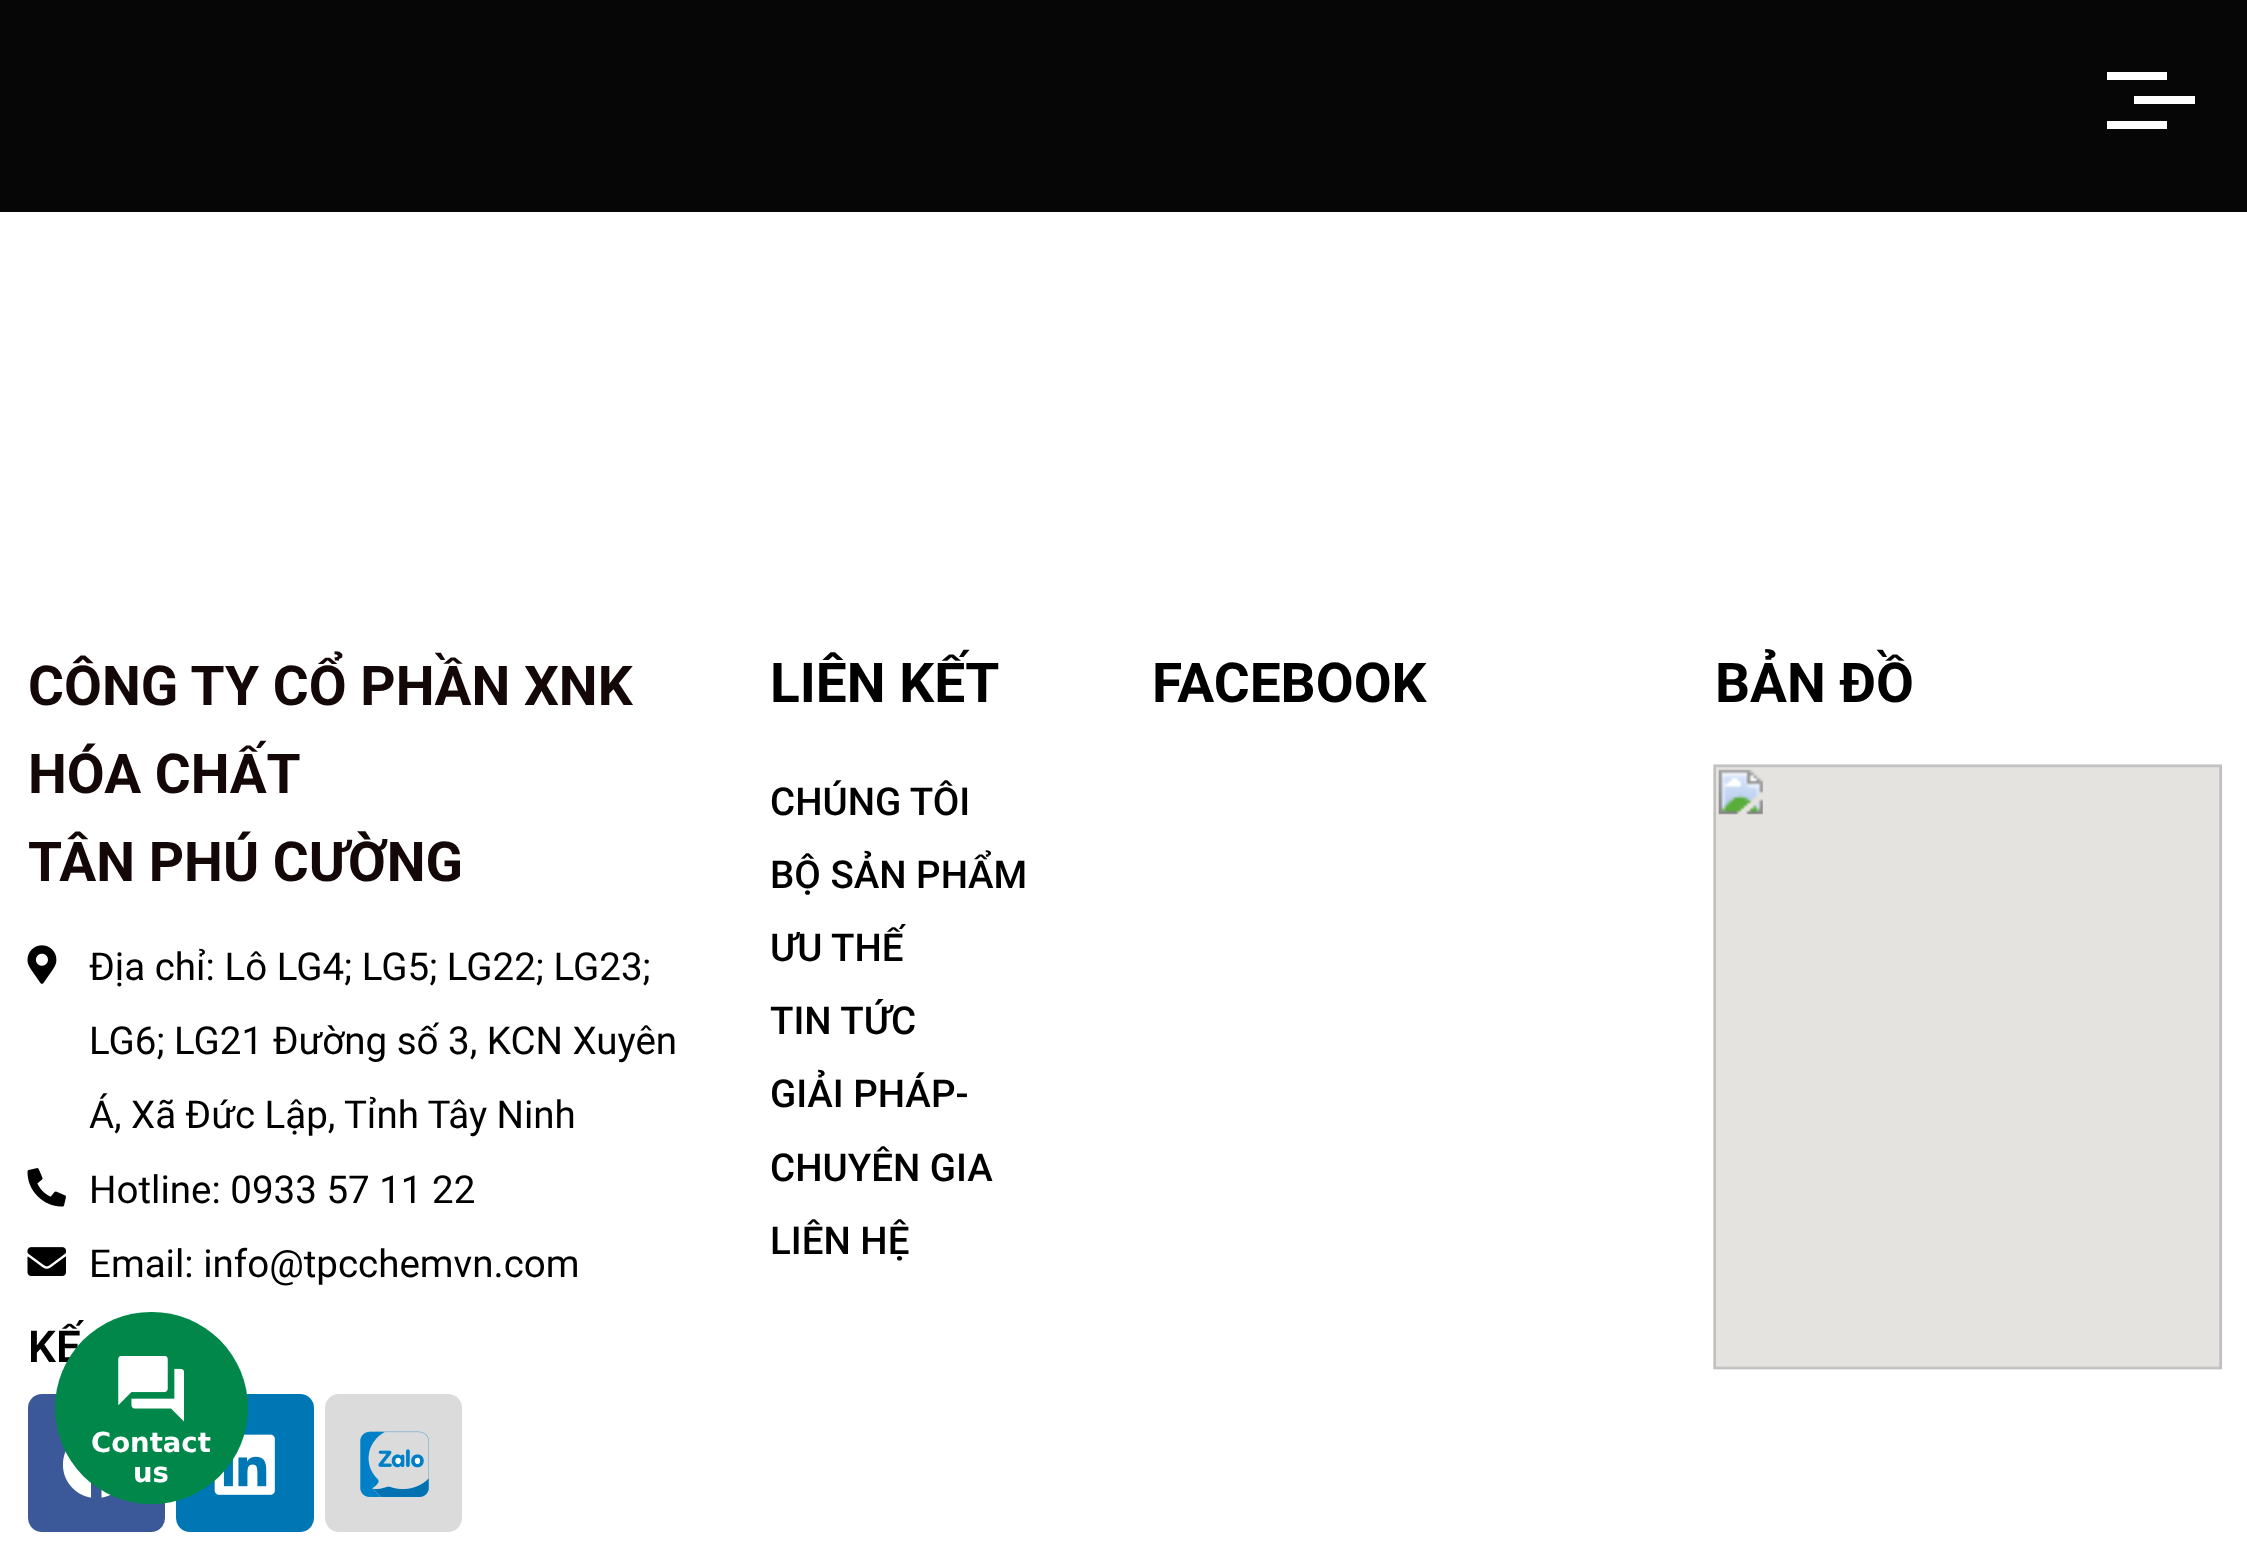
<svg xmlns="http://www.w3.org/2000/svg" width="2247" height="1557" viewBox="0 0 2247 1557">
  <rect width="100%" height="100%" fill="#fff"/>
  <path d="M0 0h2247v212H0z" fill="#060606"/>
  <path d="M2107 72h60v8H2107z" fill="#fff"/>
  <path d="M2134 96h61v8H2134z" fill="#fff"/>
  <path d="M2107 121h60v8H2107z" fill="#fff"/>
  <image x="27" y="945" width="30" height="39" href="img/1.png"/>
  <image x="27" y="1168" width="39" height="39" href="img/2.png"/>
  <image x="27" y="1247" width="39" height="29" href="img/3.png"/>
  <rect x="28" y="1394" width="137" height="138" rx="14" fill="#3b5998"/>
  <image x="62" y="1450" width="49" height="48" href="img/4.png"/>
  <rect x="176" y="1394" width="138" height="138" rx="14" fill="#0077b5"/>
  <image x="214" y="1434" width="61" height="61" href="img/5.png"/>
  <rect x="325" y="1394" width="137" height="138" rx="14" fill="#dbdbdb"/>
  <image x="360" y="1431" width="69" height="66" href="img/6.png"/>
  <image x="1713" y="764" width="509" height="606" href="img/7.png"/>
  <g font-family="Roboto" font-size="55" font-weight="bold" fill="#140707">
    <text x="28" y="705">CÔNG TY CỔ PHẦN XNK</text>
    <text x="28" y="793">HÓA CHẤT</text>
    <text x="28" y="881">TÂN PHÚ CƯỜNG</text>
  </g>
  <g font-family="Roboto" font-size="38.5" fill="#000">
    <text x="89" y="980">Địa chỉ: Lô LG4; LG5; LG22; LG23;</text>
    <text x="89" y="1054">LG6; LG21 Đường số 3, KCN Xuyên</text>
    <text x="89" y="1128" word-spacing="-0.25">Á, Xã Đức Lập, Tỉnh Tây Ninh</text>
    <text x="89" y="1203">Hotline: 0933 57 11 22</text>
    <text x="89" y="1277">Email: info@tpcchemvn.com</text>
  </g>
  <text x="28" y="1362" font-family="Roboto" font-size="44" font-weight="600" fill="#000">KẾ</text>
  <text x="770" y="702" font-family="Roboto" font-size="55" font-weight="bold" fill="#000">LIÊN KẾT</text>
  <g font-family="Roboto" font-size="38.5" font-weight="500" fill="#000">
    <text x="770" y="815">CHÚNG TÔI</text>
    <text x="770" y="888">BỘ SẢN PHẨM</text>
    <text x="770" y="961">ƯU THẾ</text>
    <text x="770" y="1034">TIN TỨC</text>
    <text x="770" y="1107">GIẢI PHÁP-</text>
    <text x="770" y="1181">CHUYÊN GIA</text>
    <text x="770" y="1254">LIÊN HỆ</text>
  </g>
  <g font-family="Roboto" font-size="55" font-weight="bold" fill="#000">
    <text x="1152" y="702">FACEBOOK</text>
    <text x="1715" y="702">BẢN ĐỒ</text>
  </g>
  <rect x="55" y="1312" width="193" height="192" rx="96" fill="#008749"/>
  <image x="118" y="1356" width="66" height="66" href="img/8.png"/>
  <g font-family="DejaVu Sans" font-size="27.5" font-weight="bold" fill="#fff">
    <text x="91" y="1452">Contact</text>
    <text x="133" y="1482">us</text>
  </g>
</svg>
